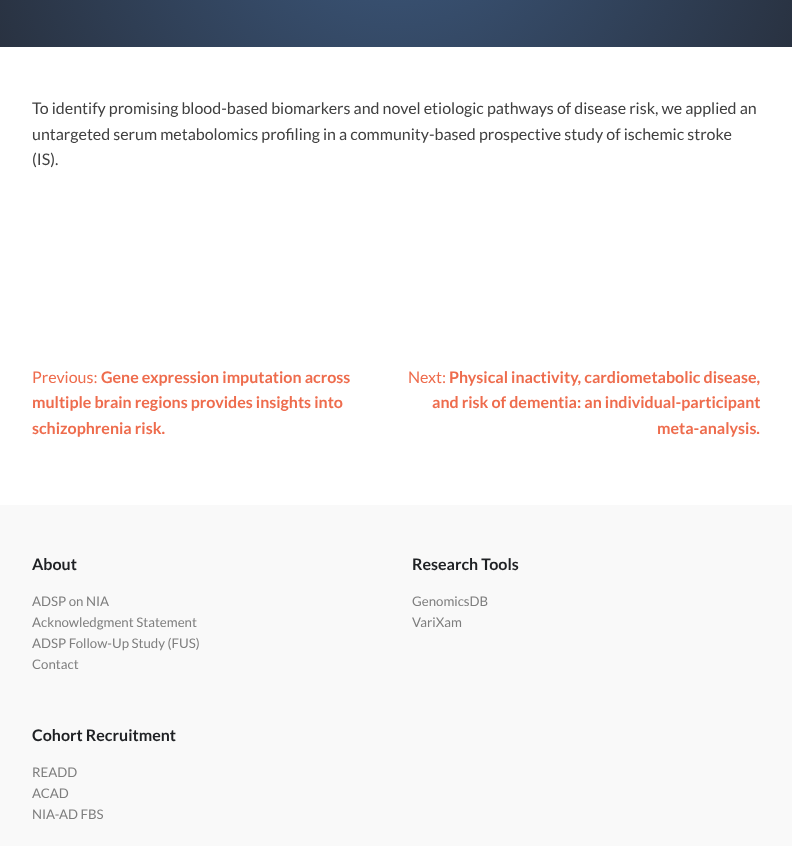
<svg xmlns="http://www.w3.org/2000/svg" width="792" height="846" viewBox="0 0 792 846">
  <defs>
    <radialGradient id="g1" gradientUnits="userSpaceOnUse" cx="396" cy="-125" r="432"><stop offset="0" stop-color="#3d5a80"/><stop offset="1" stop-color="#293241"/></radialGradient>
  </defs>
  <rect width="100%" height="100%" fill="#fff"/>
  <path d="M0 0h792v47H0z" fill="url(#g1)"/>
  <path d="M0 505h792v341H0z" fill="#f9f9f9"/>
  <g font-family="Lato" font-size="16" fill="#404040">
    <text x="32" y="114">To identify promising blood-based biomarkers and novel etiologic pathways of disease risk, we applied an</text>
    <text x="32" y="140">untargeted serum metabolomics profiling in a community-based prospective study of ischemic stroke</text>
    <text x="32" y="165">(IS).</text>
  </g>
  <text x="32" y="383" font-family="Lato" font-size="16" fill="#ee6c4d">Previous:</text>
  <g font-family="Lato" font-size="16" font-weight="bold" fill="#ee6c4d">
    <text x="101" y="383">Gene expression imputation across</text>
    <text x="32" y="408">multiple brain regions provides insights into</text>
    <text x="32" y="434">schizophrenia risk.</text>
  </g>
  <text x="408" y="383" font-family="Lato" font-size="16" fill="#ee6c4d">Next:</text>
  <g font-family="Lato" font-size="16" font-weight="bold" fill="#ee6c4d">
    <text x="449" y="383">Physical inactivity, cardiometabolic disease,</text>
    <text x="432" y="408">and risk of dementia: an individual-participant</text>
    <text x="657" y="434">meta-analysis.</text>
  </g>
  <text x="32" y="570" font-family="Lato" font-size="16" font-weight="bold" fill="#1f2124">About</text>
  <g font-family="Lato" font-size="13.25" fill="#7e7e7e">
    <text x="32" y="606">ADSP on NIA</text>
    <text x="32" y="627">Acknowledgment Statement</text>
    <text x="32" y="648">ADSP Follow-Up Study (FUS)</text>
    <text x="32" y="669">Contact</text>
  </g>
  <text x="412" y="570" font-family="Lato" font-size="16" font-weight="bold" fill="#1f2124">Research Tools</text>
  <g font-family="Lato" font-size="13.25" fill="#7e7e7e">
    <text x="412" y="606">GenomicsDB</text>
    <text x="412" y="627">VariXam</text>
  </g>
  <text x="32" y="741" font-family="Lato" font-size="16" font-weight="bold" fill="#1f2124">Cohort Recruitment</text>
  <g font-family="Lato" font-size="13.25" fill="#7e7e7e">
    <text x="32" y="777">READD</text>
    <text x="32" y="798">ACAD</text>
    <text x="32" y="819">NIA-AD FBS</text>
  </g>
</svg>
